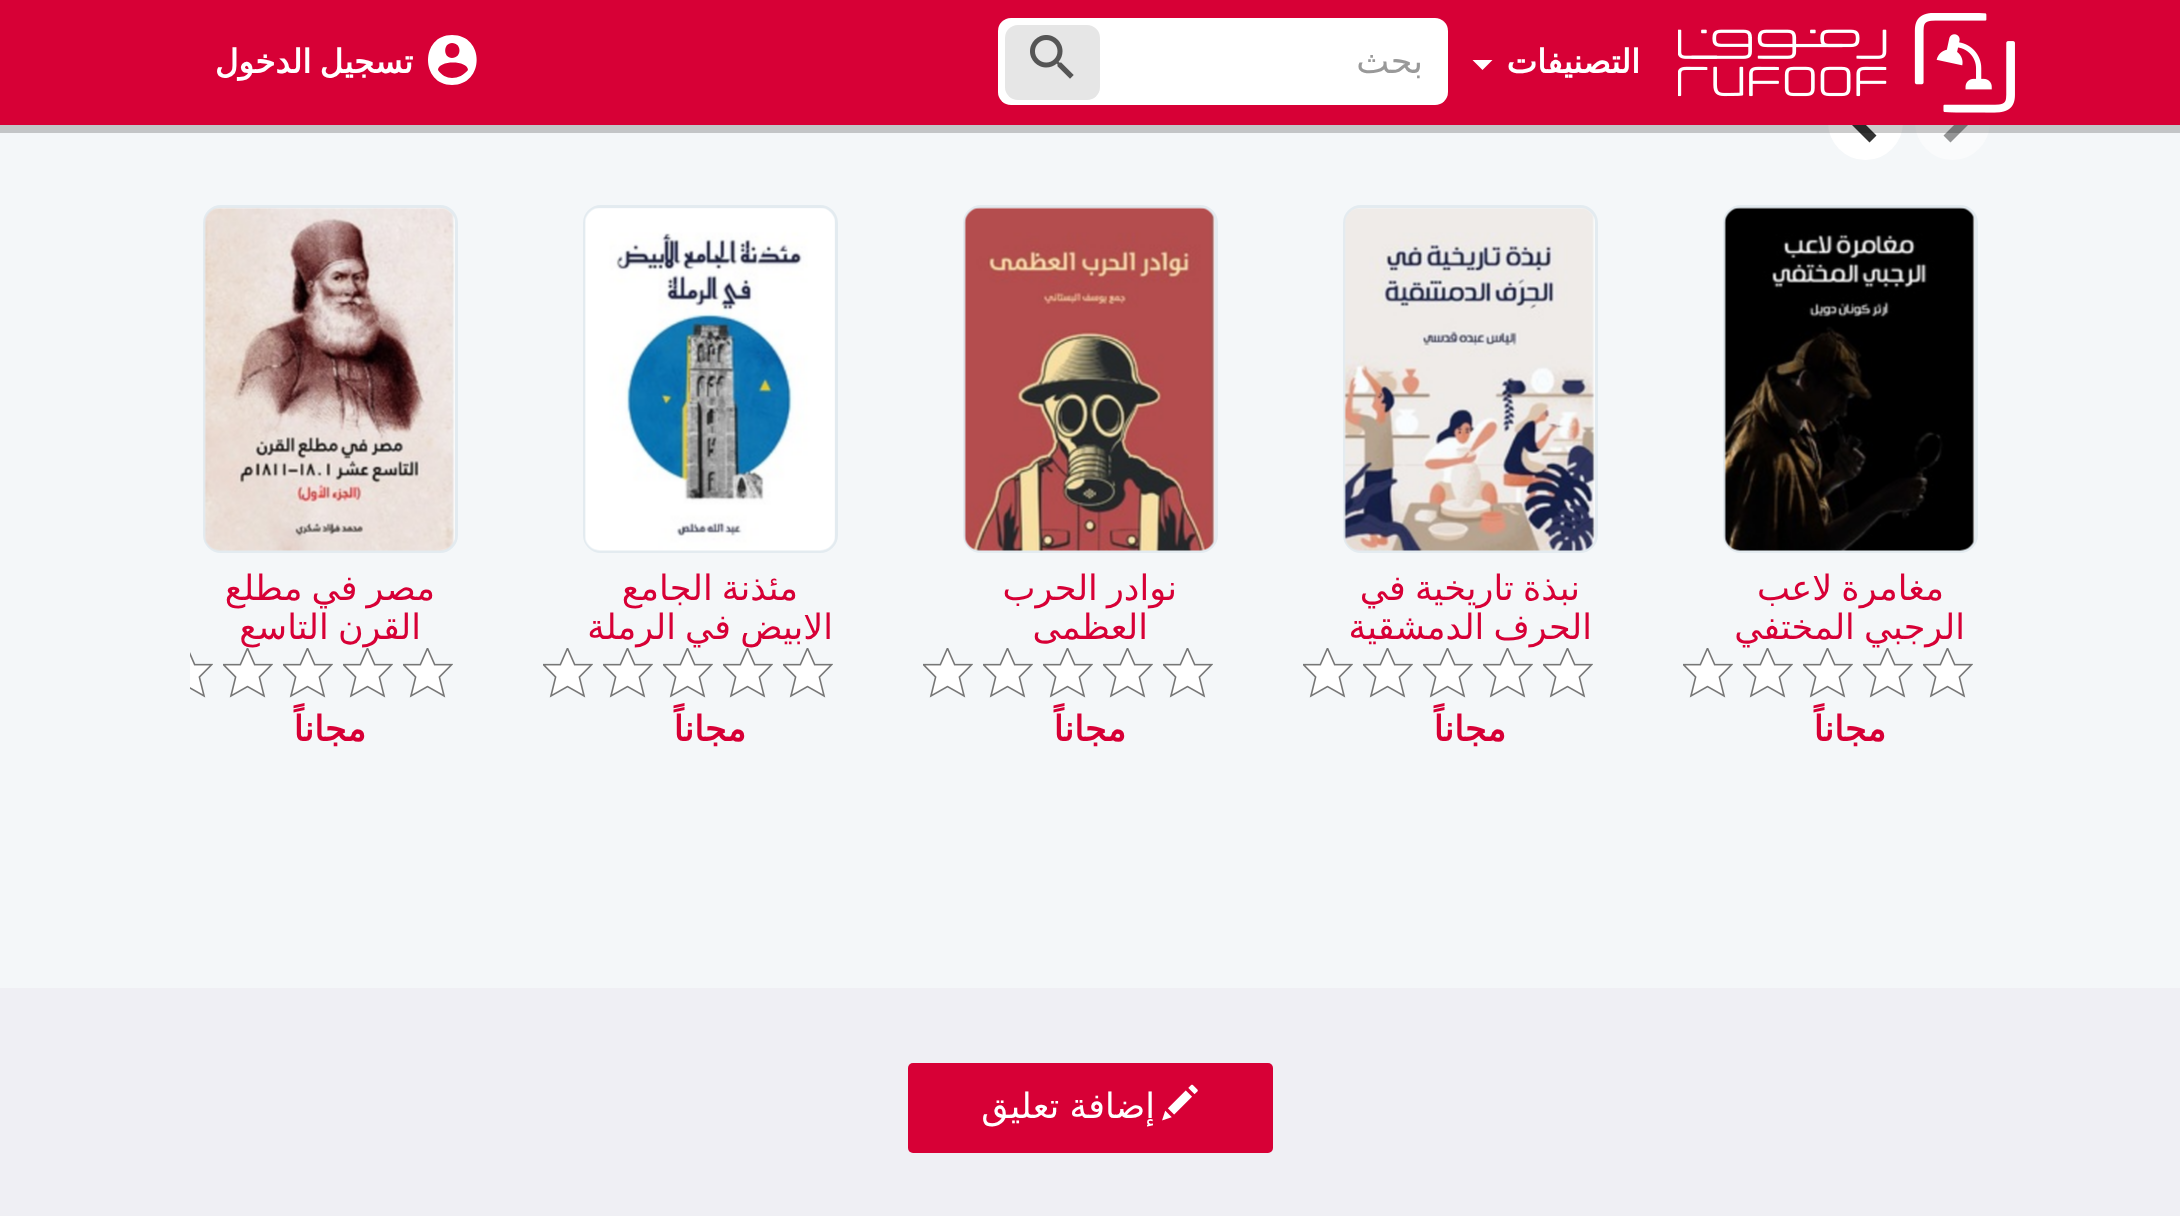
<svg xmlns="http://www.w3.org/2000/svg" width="2180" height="1216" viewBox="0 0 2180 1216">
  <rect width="100%" height="100%" fill="#f4f7f9"/>
  <circle cx="1952.5" cy="122.5" r="37.5" fill="#fafbfc"/>
  <path d="M1970 123L1950.5 142.5L1943.5 135.5L1956 123L1943.5 110.5L1950.5 103.5Z" fill="#949596"/>
  <circle cx="1865.5" cy="122.5" r="37.5" fill="#fff"/>
  <path d="M1876.5 110.5L1864 123L1876.5 135.5L1869.5 142.5L1850 123L1869.5 103.5Z" fill="#333"/>
  <path d="M0 125h2180v8H0z" fill="#00000033"/>
  <path d="M0 0h2180v125H0z" fill="#d70036"/>
  <image x="1678" y="13" width="337" height="100" href="img/1.png"/>
  <path d="M1472.5 60H1492.5L1482.5 70Z" fill="#fff"/>
  <rect x="998" y="18" width="450" height="87" rx="13" fill="#fff"/>
  <rect x="1005" y="25" width="95" height="75" rx="13" fill="#e6e6e6"/>
  <image x="1030" y="35" width="44" height="44" href="img/2.png"/>
  <path d="M452 35C420 35 420 85 452 85C485 85 485 35 452 35ZM452 43C462 43 462 58 452 58C443 58 443 43 452 43ZM452 78C447 78 441 75 438 70C438 60 468 60 468 70C464 75 458 78 452 78Z" fill="#fff"/>
  <rect x="1724.5" y="206.5" width="252" height="345" rx="16.5" fill="none" stroke="#e3ebf0" stroke-width="3"/>
  <image x="1724" y="207" width="251" height="344" href="img/3.png"/>
  <image x="1923" y="648" width="50" height="50" href="img/4.png"/>
  <image x="1863" y="648" width="50" height="50" href="img/4.png"/>
  <image x="1803" y="648" width="50" height="50" href="img/4.png"/>
  <image x="1743" y="648" width="50" height="50" href="img/4.png"/>
  <image x="1683" y="648" width="50" height="50" href="img/4.png"/>
  <rect x="1344.5" y="206.5" width="252" height="345" rx="16.5" fill="none" stroke="#e3ebf0" stroke-width="3"/>
  <image x="1344" y="208" width="251" height="343" href="img/5.png"/>
  <image x="1543" y="648" width="50" height="50" href="img/4.png"/>
  <image x="1483" y="648" width="50" height="50" href="img/4.png"/>
  <image x="1423" y="648" width="50" height="50" href="img/4.png"/>
  <image x="1363" y="648" width="50" height="50" href="img/4.png"/>
  <image x="1303" y="648" width="50" height="50" href="img/4.png"/>
  <rect x="964.5" y="206.5" width="252" height="345" rx="16.5" fill="none" stroke="#e3ebf0" stroke-width="3"/>
  <image x="964" y="207" width="251" height="344" href="img/6.png"/>
  <image x="1163" y="648" width="50" height="50" href="img/4.png"/>
  <image x="1103" y="648" width="50" height="50" href="img/4.png"/>
  <image x="1043" y="648" width="50" height="50" href="img/4.png"/>
  <image x="983" y="648" width="50" height="50" href="img/4.png"/>
  <image x="923" y="648" width="50" height="50" href="img/4.png"/>
  <rect x="584.5" y="206.5" width="252" height="345" rx="16.5" fill="none" stroke="#e3ebf0" stroke-width="3"/>
  <image x="585" y="208" width="250" height="343" href="img/7.png"/>
  <image x="783" y="648" width="50" height="50" href="img/4.png"/>
  <image x="723" y="648" width="50" height="50" href="img/4.png"/>
  <image x="663" y="648" width="50" height="50" href="img/4.png"/>
  <image x="603" y="648" width="50" height="50" href="img/4.png"/>
  <image x="543" y="648" width="50" height="50" href="img/4.png"/>
  <rect x="204.5" y="206.5" width="252" height="345" rx="16.5" fill="none" stroke="#e3ebf0" stroke-width="3"/>
  <image x="204" y="207" width="251" height="344" href="img/8.png"/>
  <image x="403" y="648" width="50" height="50" href="img/4.png"/>
  <image x="343" y="648" width="50" height="50" href="img/4.png"/>
  <image x="283" y="648" width="50" height="50" href="img/4.png"/>
  <image x="223" y="648" width="50" height="50" href="img/4.png"/>
  <image x="190" y="652" width="23" height="46" href="img/9.png"/>
  <path d="M0 988h2180v228H0z" fill="#efeff4"/>
  <rect x="908" y="1063" width="365" height="90" rx="5" fill="#d70036"/>
  <image x="1162" y="1084" width="36" height="37" href="img/10.png"/>
  <text x="1640" y="73" font-family="DejaVu Sans" font-size="32.5" font-weight="bold" direction="rtl" fill="#fff">التصنيفات</text>
  <text x="1423" y="73" font-family="DejaVu Sans" font-size="35" direction="rtl" fill="#999">بحث</text>
  <text x="413" y="73" word-spacing="-2" font-family="DejaVu Sans" font-size="32.5" font-weight="bold" direction="rtl" fill="#fff">تسجيل الدخول</text>
  <g font-family="DejaVu Sans" font-size="35" direction="rtl" fill="#d70036">
    <text x="1944" y="600" word-spacing="-2">مغامرة لاعب</text>
    <text x="1965" y="639" word-spacing="-2">الرجبي المختفي</text>
  </g>
  <text x="1886" y="741" font-family="DejaVu Sans" font-size="35" font-weight="bold" direction="rtl" fill="#d70036">مجاناً</text>
  <g font-family="DejaVu Sans" font-size="35" direction="rtl" fill="#d70036">
    <text x="1580" y="600" word-spacing="-2">نبذة تاريخية في</text>
    <text x="1592" y="639" word-spacing="-2">الحرف الدمشقية</text>
  </g>
  <text x="1506" y="741" font-family="DejaVu Sans" font-size="35" font-weight="bold" direction="rtl" fill="#d70036">مجاناً</text>
  <g font-family="DejaVu Sans" font-size="35" direction="rtl" fill="#d70036">
    <text x="1177" y="600" word-spacing="-2">نوادر الحرب</text>
    <text x="1148" y="639">العظمى</text>
  </g>
  <text x="1126" y="741" font-family="DejaVu Sans" font-size="35" font-weight="bold" direction="rtl" fill="#d70036">مجاناً</text>
  <g font-family="DejaVu Sans" font-size="35" direction="rtl" fill="#d70036">
    <text x="798" y="600" word-spacing="-2">مئذنة الجامع</text>
    <text x="833" y="639" word-spacing="-2">الابيض في الرملة</text>
  </g>
  <text x="746" y="741" font-family="DejaVu Sans" font-size="35" font-weight="bold" direction="rtl" fill="#d70036">مجاناً</text>
  <g font-family="DejaVu Sans" font-size="35" direction="rtl" fill="#d70036">
    <text x="435" y="600" word-spacing="-2">مصر في مطلع</text>
    <text x="421" y="639" word-spacing="-2">القرن التاسع</text>
  </g>
  <text x="366" y="741" font-family="DejaVu Sans" font-size="35" font-weight="bold" direction="rtl" fill="#d70036">مجاناً</text>
  <text x="1155" y="1118" word-spacing="-1" font-family="DejaVu Sans" font-size="35" direction="rtl" fill="#fff">إضافة تعليق</text>
</svg>
